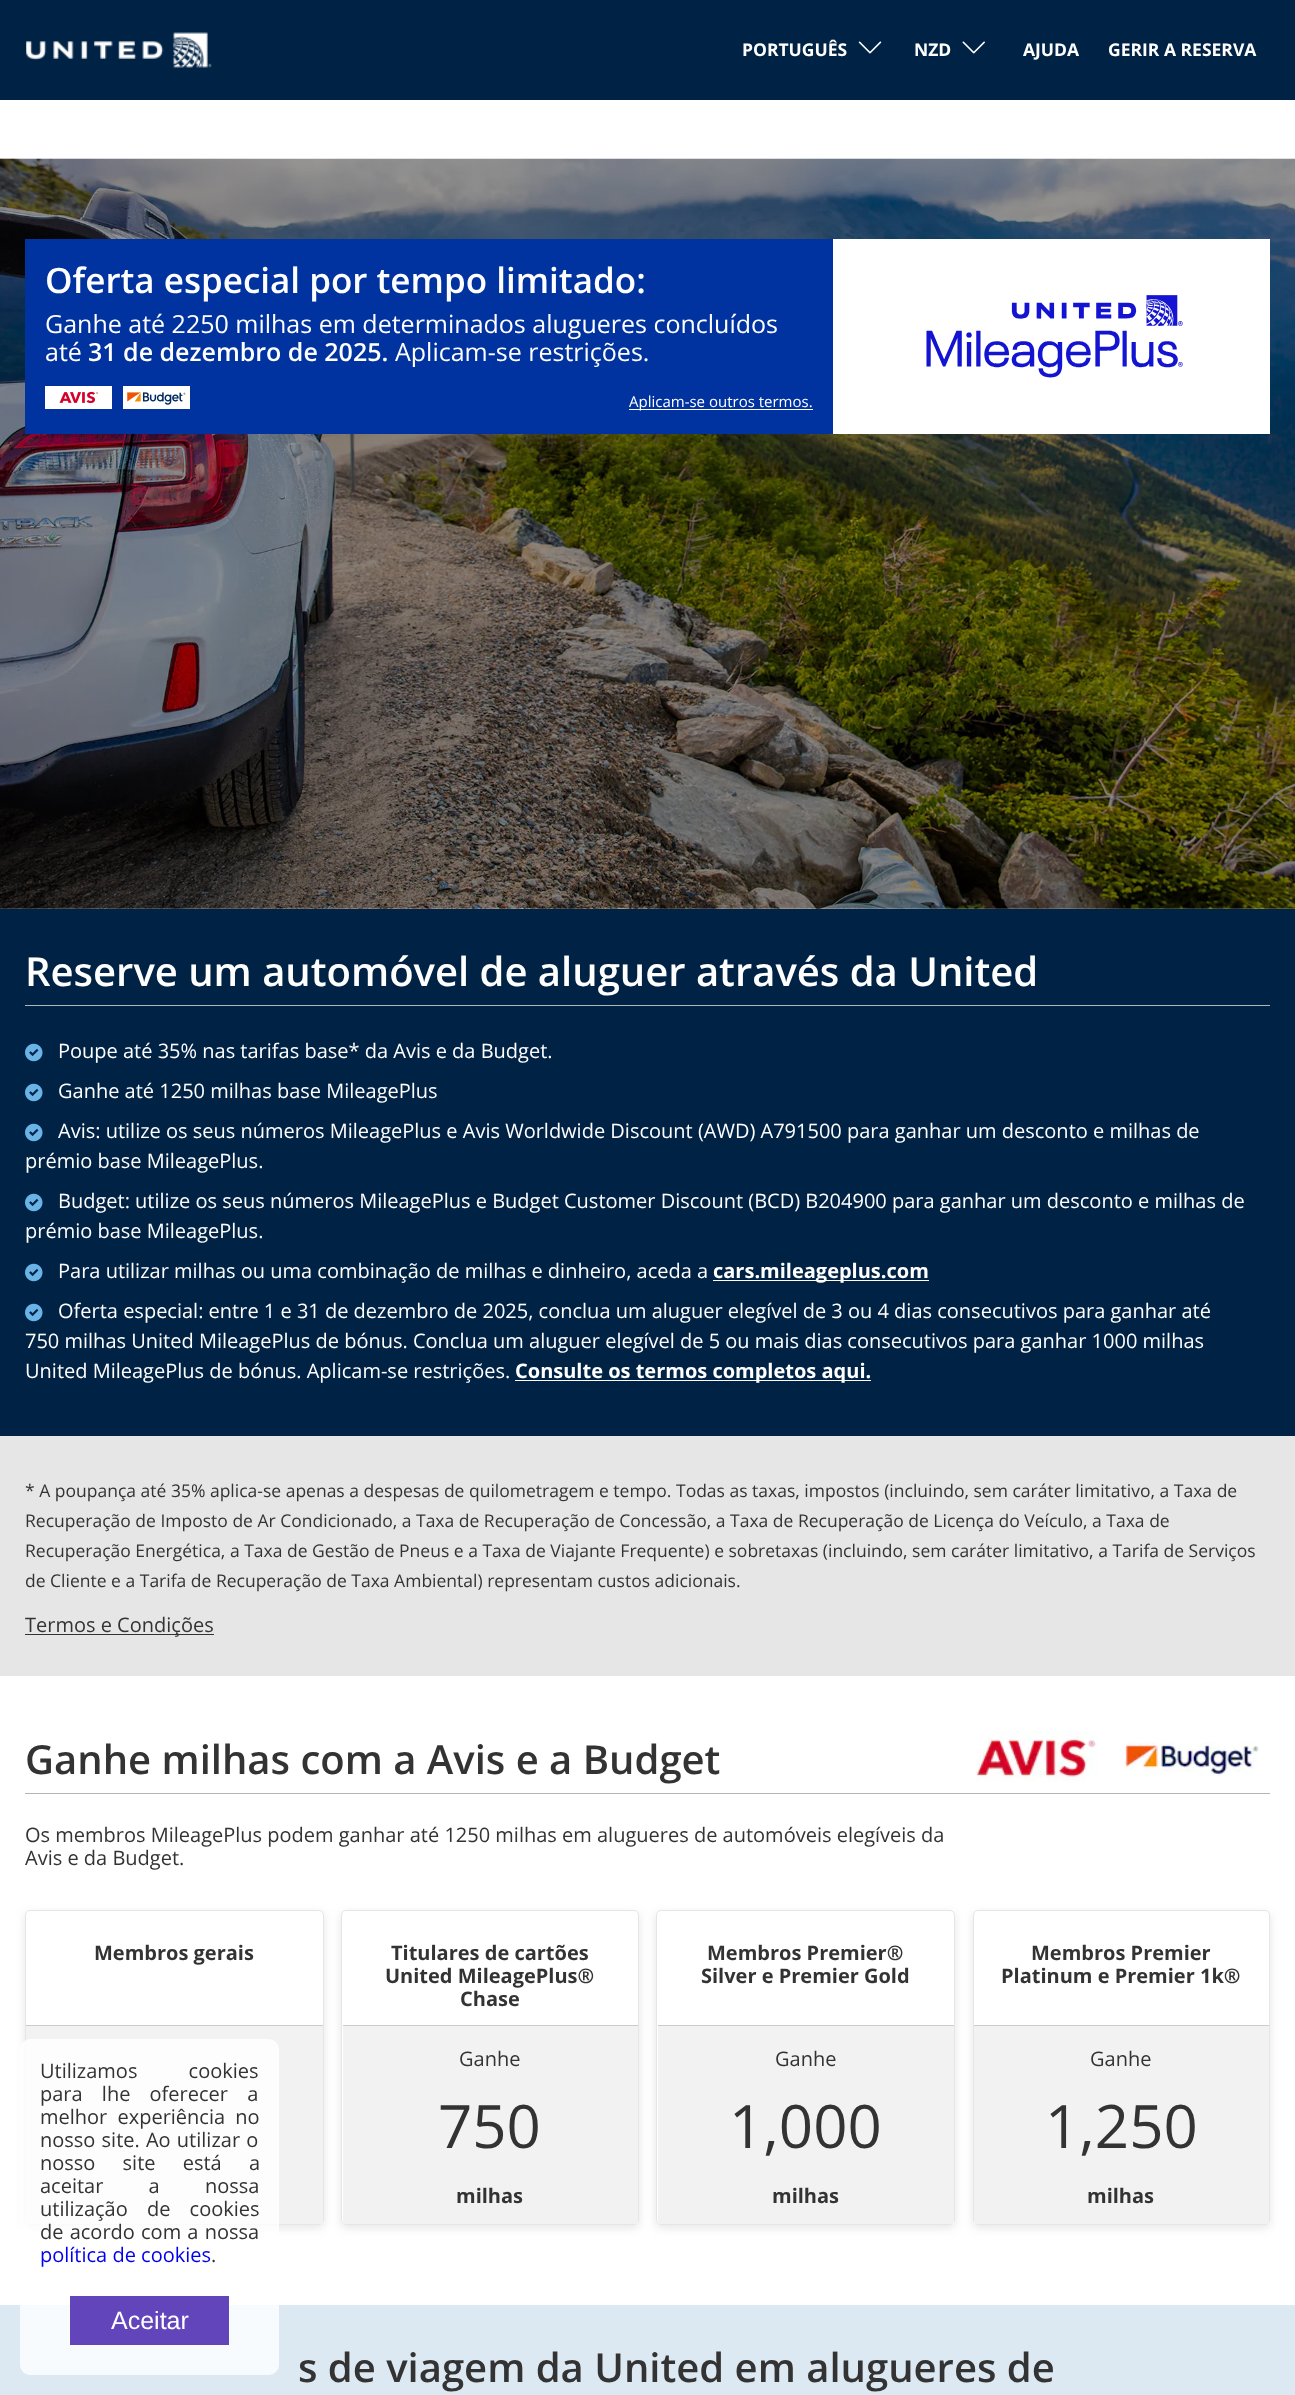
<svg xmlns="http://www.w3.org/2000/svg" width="1295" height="2395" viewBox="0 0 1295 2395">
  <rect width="100%" height="100%" fill="#fff"/>
  <path d="M0 0h1295v100H0z" fill="#024"/>
  <image x="26" y="32" width="186" height="36" href="img/1.png"/>
  <image x="858" y="41" width="24" height="13" href="img/2.png"/>
  <image x="962" y="41" width="23" height="13" href="img/3.png"/>
  <image x="0" y="158" width="1295" height="751" href="img/4.png"/>
  <path d="M25 239h808v195H25z" fill="#0033a0"/>
  <image x="45" y="386" width="67" height="23" href="img/5.png"/>
  <image x="123" y="386" width="67" height="23" href="img/6.png"/>
  <path d="M629 409h184v1H629z" fill="#fff"/>
  <path d="M833 239h437v195H833z" fill="#fff"/>
  <image x="926" y="295" width="257" height="83" href="img/7.png"/>
  <path d="M0 909h1295v527H0z" fill="#024"/>
  <path d="M25 1005h1245v1H25z" fill="#b5b5b5"/>
  <image x="25" y="1043" width="18" height="19" href="img/8.png"/>
  <image x="25" y="1083" width="18" height="19" href="img/8.png"/>
  <image x="25" y="1123" width="18" height="19" href="img/8.png"/>
  <image x="25" y="1193" width="18" height="19" href="img/8.png"/>
  <image x="25" y="1263" width="18" height="19" href="img/8.png"/>
  <path d="M713 1280h216v1H713z" fill="#fff"/>
  <image x="25" y="1303" width="18" height="19" href="img/8.png"/>
  <path d="M515 1380h356v1H515z" fill="#fff"/>
  <path d="M0 1436h1295v240H0z" fill="#e6e6e6"/>
  <path d="M25 1634h189v1H25z" fill="#333"/>
  <path d="M25 1793h1245v1H25z" fill="#b5b5b5"/>
  <image x="976" y="1731" width="121" height="51" href="img/9.png"/>
  <image x="1124" y="1741" width="135" height="35" href="img/10.png"/>
  <rect x="25" y="1913" width="299" height="315" rx="5" fill="#e6e6e6" filter="blur(5px)"/>
  <rect x="25.5" y="1910.5" width="298" height="314" rx="4.5" fill="#fff" stroke="#e6e6e6"/>
  <path d="M26 2025h297v1H26z" fill="#ccc"/>
  <path d="M26 2026h297v198H26z" fill="#f2f2f2"/>
  <rect x="341" y="1913" width="298" height="315" rx="5" fill="#e6e6e6" filter="blur(5px)"/>
  <rect x="341.5" y="1910.5" width="297" height="314" rx="4.5" fill="#fff" stroke="#e6e6e6"/>
  <path d="M343 2025h295v1H343z" fill="#ccc"/>
  <path d="M343 2026h295v198H343z" fill="#f2f2f2"/>
  <rect x="656" y="1913" width="299" height="315" rx="5" fill="#e6e6e6" filter="blur(5px)"/>
  <rect x="656.5" y="1910.5" width="298" height="314" rx="4.5" fill="#fff" stroke="#e6e6e6"/>
  <path d="M658 2025h296v1H658z" fill="#ccc"/>
  <path d="M658 2026h296v198H658z" fill="#f2f2f2"/>
  <rect x="973" y="1913" width="297" height="315" rx="5" fill="#e6e6e6" filter="blur(5px)"/>
  <rect x="973.5" y="1910.5" width="296" height="314" rx="4.5" fill="#fff" stroke="#e6e6e6"/>
  <path d="M974 2025h295v1H974z" fill="#ccc"/>
  <path d="M974 2026h295v198H974z" fill="#f2f2f2"/>
  <path d="M0 2305h1295v90H0z" fill="#dce9f2"/>
  <rect x="20" y="2039" width="259" height="336" rx="10" fill="#ffffffcc"/>
  <path d="M70 2296h159v49H70z" fill="#6244bb"/>
  <g font-family="Open Sans" font-size="17.5" font-weight="bold" fill="#fff">
    <text x="742" y="56">PORTUGUÊS</text>
    <text x="914" y="56">NZD</text>
    <text x="1023" y="56">AJUDA</text>
    <text x="1108" y="56">GERIR A RESERVA</text>
  </g>
  <text x="45" y="293" font-family="Open Sans" font-size="35" font-weight="600" fill="#fff">Oferta especial por tempo limitado:</text>
  <g font-family="Open Sans" font-size="25" fill="#fff">
    <text x="45" y="333">Ganhe até 2250 milhas em determinados alugueres concluídos</text>
    <text x="45" y="361">até</text>
  </g>
  <text x="88" y="361" font-family="Open Sans" font-size="25" font-weight="600" fill="#fff">31 de dezembro de 2025.</text>
  <text x="395" y="361" font-family="Open Sans" font-size="25" fill="#fff">Aplicam-se restrições.</text>
  <text x="629" y="407" font-family="Open Sans" font-size="15" fill="#fff">Aplicam-se outros termos.</text>
  <text x="25" y="986" font-family="Open Sans" font-size="40" font-weight="600" fill="#fff">Reserve um automóvel de aluguer através da United</text>
  <g font-family="Open Sans" font-size="20" fill="#fff">
    <text x="58" y="1058">Poupe até 35% nas tarifas base* da Avis e da Budget.</text>
    <text x="58" y="1098">Ganhe até 1250 milhas base MileagePlus</text>
    <text x="58" y="1138">Avis: utilize os seus números MileagePlus e Avis Worldwide Discount (AWD) A791500 para ganhar um desconto e milhas de</text>
    <text x="25" y="1168">prémio base MileagePlus.</text>
    <text x="58" y="1208">Budget: utilize os seus números MileagePlus e Budget Customer Discount (BCD) B204900 para ganhar um desconto e milhas de</text>
    <text x="25" y="1238">prémio base MileagePlus.</text>
    <text x="58" y="1278">Para utilizar milhas ou uma combinação de milhas e dinheiro, aceda a</text>
  </g>
  <text x="713" y="1278" font-family="Open Sans" font-size="20" font-weight="bold" fill="#fff">cars.mileageplus.com</text>
  <g font-family="Open Sans" font-size="20" fill="#fff">
    <text x="58" y="1318">Oferta especial: entre 1 e 31 de dezembro de 2025, conclua um aluguer elegível de 3 ou 4 dias consecutivos para ganhar até</text>
    <text x="25" y="1348">750 milhas United MileagePlus de bónus. Conclua um aluguer elegível de 5 ou mais dias consecutivos para ganhar 1000 milhas</text>
    <text x="25" y="1378">United MileagePlus de bónus. Aplicam-se restrições.</text>
  </g>
  <text x="515" y="1378" font-family="Open Sans" font-size="20" font-weight="bold" fill="#fff">Consulte os termos completos aqui.</text>
  <g font-family="Open Sans" font-size="17.5" fill="#333">
    <text x="25" y="1497">* A poupança até 35% aplica-se apenas a despesas de quilometragem e tempo. Todas as taxas, impostos (incluindo, sem caráter limitativo, a Taxa de</text>
    <text x="25" y="1527">Recuperação de Imposto de Ar Condicionado, a Taxa de Recuperação de Concessão, a Taxa de Recuperação de Licença do Veículo, a Taxa de</text>
    <text x="25" y="1557">Recuperação Energética, a Taxa de Gestão de Pneus e a Taxa de Viajante Frequente) e sobretaxas (incluindo, sem caráter limitativo, a Tarifa de Serviços</text>
    <text x="25" y="1587">de Cliente e a Tarifa de Recuperação de Taxa Ambiental) representam custos adicionais.</text>
  </g>
  <text x="25" y="1632" font-family="Open Sans" font-size="20" fill="#333">Termos e Condições</text>
  <text x="25" y="1774" font-family="Open Sans" font-size="40" font-weight="600" fill="#333">Ganhe milhas com a Avis e a Budget</text>
  <g font-family="Open Sans" font-size="20" fill="#333">
    <text x="25" y="1842">Os membros MileagePlus podem ganhar até 1250 milhas em alugueres de automóveis elegíveis da</text>
    <text x="25" y="1865">Avis e da Budget.</text>
  </g>
  <g font-family="Open Sans" font-size="20" font-weight="bold" fill="#333">
    <text x="94" y="1960">Membros gerais</text>
    <text x="391" y="1960">Titulares de cartões</text>
    <text x="385" y="1983">United MileagePlus®</text>
    <text x="460" y="2006">Chase</text>
  </g>
  <text x="459" y="2066" font-family="Open Sans" font-size="20" fill="#333">Ganhe</text>
  <text x="438" y="2148" font-family="Open Sans" font-size="60" fill="#333">750</text>
  <g font-family="Open Sans" font-size="20" font-weight="bold" fill="#333">
    <text x="456" y="2203">milhas</text>
    <text x="707" y="1960">Membros Premier®</text>
    <text x="701" y="1983">Silver e Premier Gold</text>
  </g>
  <text x="775" y="2066" font-family="Open Sans" font-size="20" fill="#333">Ganhe</text>
  <text x="729" y="2148" font-family="Open Sans" font-size="60" fill="#333">1,000</text>
  <g font-family="Open Sans" font-size="20" font-weight="bold" fill="#333">
    <text x="772" y="2203">milhas</text>
    <text x="1031" y="1960">Membros Premier</text>
    <text x="1001" y="1983">Platinum e Premier 1k®</text>
  </g>
  <text x="1090" y="2066" font-family="Open Sans" font-size="20" fill="#333">Ganhe</text>
  <text x="1045" y="2148" font-family="Open Sans" font-size="60" fill="#333">1,250</text>
  <text x="1087" y="2203" font-family="Open Sans" font-size="20" font-weight="bold" fill="#333">milhas</text>
  <g font-family="Open Sans" font-size="20" fill="#333">
    <text x="40" y="2078" word-spacing="46">Utilizamos cookies</text>
    <text x="40" y="2101" word-spacing="14">para lhe oferecer a</text>
    <text x="40" y="2124" word-spacing="5">melhor experiência no</text>
    <text x="40" y="2147" word-spacing="1">nosso site. Ao utilizar o</text>
    <text x="40" y="2170" word-spacing="22">nosso site está a</text>
    <text x="40" y="2193" word-spacing="40">aceitar a nossa</text>
    <text x="40" y="2216" word-spacing="14">utilização de cookies</text>
    <text x="40" y="2239" word-spacing="1">de acordo com a nossa</text>
  </g>
  <text x="40" y="2262" font-family="Open Sans" font-size="20" fill="#00e">política de cookies</text>
  <text x="211" y="2262" font-family="Open Sans" font-size="20" fill="#333">.</text>
  <text x="111" y="2329" font-family="Liberation Sans" font-size="25" fill="#fff">Aceitar</text>
  <text x="298" y="2382" font-family="Open Sans" font-size="40" font-weight="600" fill="#333">s de viagem da United em alugueres de</text>
</svg>
